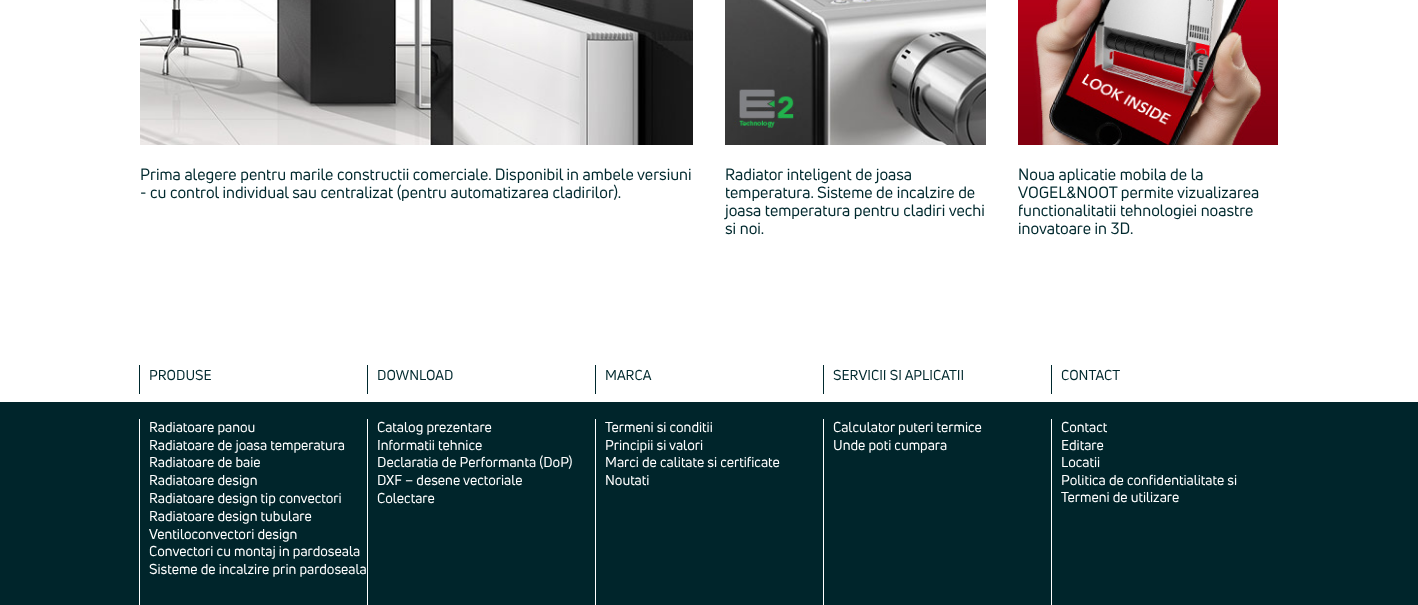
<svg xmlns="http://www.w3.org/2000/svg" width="1418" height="605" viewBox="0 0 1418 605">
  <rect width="100%" height="100%" fill="#fff"/>
  <image x="140" y="0" width="553" height="145" href="img/1.png"/>
  <image x="725" y="0" width="261" height="145" href="img/2.png"/>
  <image x="1018" y="0" width="260" height="145" href="img/3.png"/>
  <path d="M0 402h1418v203H0z" fill="#00252b"/>
  <path d="M139 365h1v29H139z" fill="#00292e"/>
  <path d="M139 419h1v186H139z" fill="#fff"/>
  <path d="M367 365h1v29H367z" fill="#00292e"/>
  <path d="M367 419h1v186H367z" fill="#fff"/>
  <path d="M595 365h1v29H595z" fill="#00292e"/>
  <path d="M595 419h1v186H595z" fill="#fff"/>
  <path d="M823 365h1v29H823z" fill="#00292e"/>
  <path d="M823 419h1v186H823z" fill="#fff"/>
  <path d="M1051 365h1v29H1051z" fill="#00292e"/>
  <path d="M1051 419h1v186H1051z" fill="#fff"/>
  <g font-family="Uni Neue" font-size="16" fill="#00292e">
    <text x="140" y="180">Prima alegere pentru marile constructii comerciale. Disponibil in ambele versiuni</text>
    <text x="140" y="198">- cu control individual sau centralizat (pentru automatizarea cladirilor).</text>
    <text x="725" y="180">Radiator inteligent de joasa</text>
    <text x="725" y="198">temperatura. Sisteme de incalzire de</text>
    <text x="725" y="216">joasa temperatura pentru cladiri vechi</text>
    <text x="725" y="234">si noi.</text>
    <text x="1018" y="180">Noua aplicatie mobila de la</text>
    <text x="1018" y="198">VOGEL&amp;NOOT permite vizualizarea</text>
    <text x="1018" y="216">functionalitatii tehnologiei noastre</text>
    <text x="1018" y="234">inovatoare in 3D.</text>
  </g>
  <text x="149" y="380" font-family="Uni Neue" font-size="14" fill="#00292e">PRODUSE</text>
  <g font-family="Uni Neue" font-size="14" fill="#fff">
    <text x="149" y="432">Radiatoare panou</text>
    <text x="149" y="450">Radiatoare de joasa temperatura</text>
    <text x="149" y="467">Radiatoare de baie</text>
    <text x="149" y="485">Radiatoare design</text>
    <text x="149" y="503">Radiatoare design tip convectori</text>
    <text x="149" y="521">Radiatoare design tubulare</text>
    <text x="149" y="539">Ventiloconvectori design</text>
    <text x="149" y="556">Convectori cu montaj in pardoseala</text>
    <text x="149" y="574">Sisteme de incalzire prin pardoseala</text>
  </g>
  <text x="377" y="380" font-family="Uni Neue" font-size="14" fill="#00292e">DOWNLOAD</text>
  <g font-family="Uni Neue" font-size="14" fill="#fff">
    <text x="377" y="432">Catalog prezentare</text>
    <text x="377" y="450">Informatii tehnice</text>
    <text x="377" y="467">Declaratia de Performanta (DoP)</text>
    <text x="377" y="485">DXF – desene vectoriale</text>
    <text x="377" y="503">Colectare</text>
  </g>
  <text x="605" y="380" font-family="Uni Neue" font-size="14" fill="#00292e">MARCA</text>
  <g font-family="Uni Neue" font-size="14" fill="#fff">
    <text x="605" y="432">Termeni si conditii</text>
    <text x="605" y="450">Principii si valori</text>
    <text x="605" y="467">Marci de calitate si certificate</text>
    <text x="605" y="485">Noutati</text>
  </g>
  <text x="833" y="380" font-family="Uni Neue" font-size="14" fill="#00292e">SERVICII SI APLICATII</text>
  <g font-family="Uni Neue" font-size="14" fill="#fff">
    <text x="833" y="432">Calculator puteri termice</text>
    <text x="833" y="450">Unde poti cumpara</text>
  </g>
  <text x="1061" y="380" font-family="Uni Neue" font-size="14" fill="#00292e">CONTACT</text>
  <g font-family="Uni Neue" font-size="14" fill="#fff">
    <text x="1061" y="432">Contact</text>
    <text x="1061" y="450">Editare</text>
    <text x="1061" y="467">Locatii</text>
    <text x="1061" y="485">Politica de confidentialitate si</text>
    <text x="1061" y="502">Termeni de utilizare</text>
  </g>
</svg>
